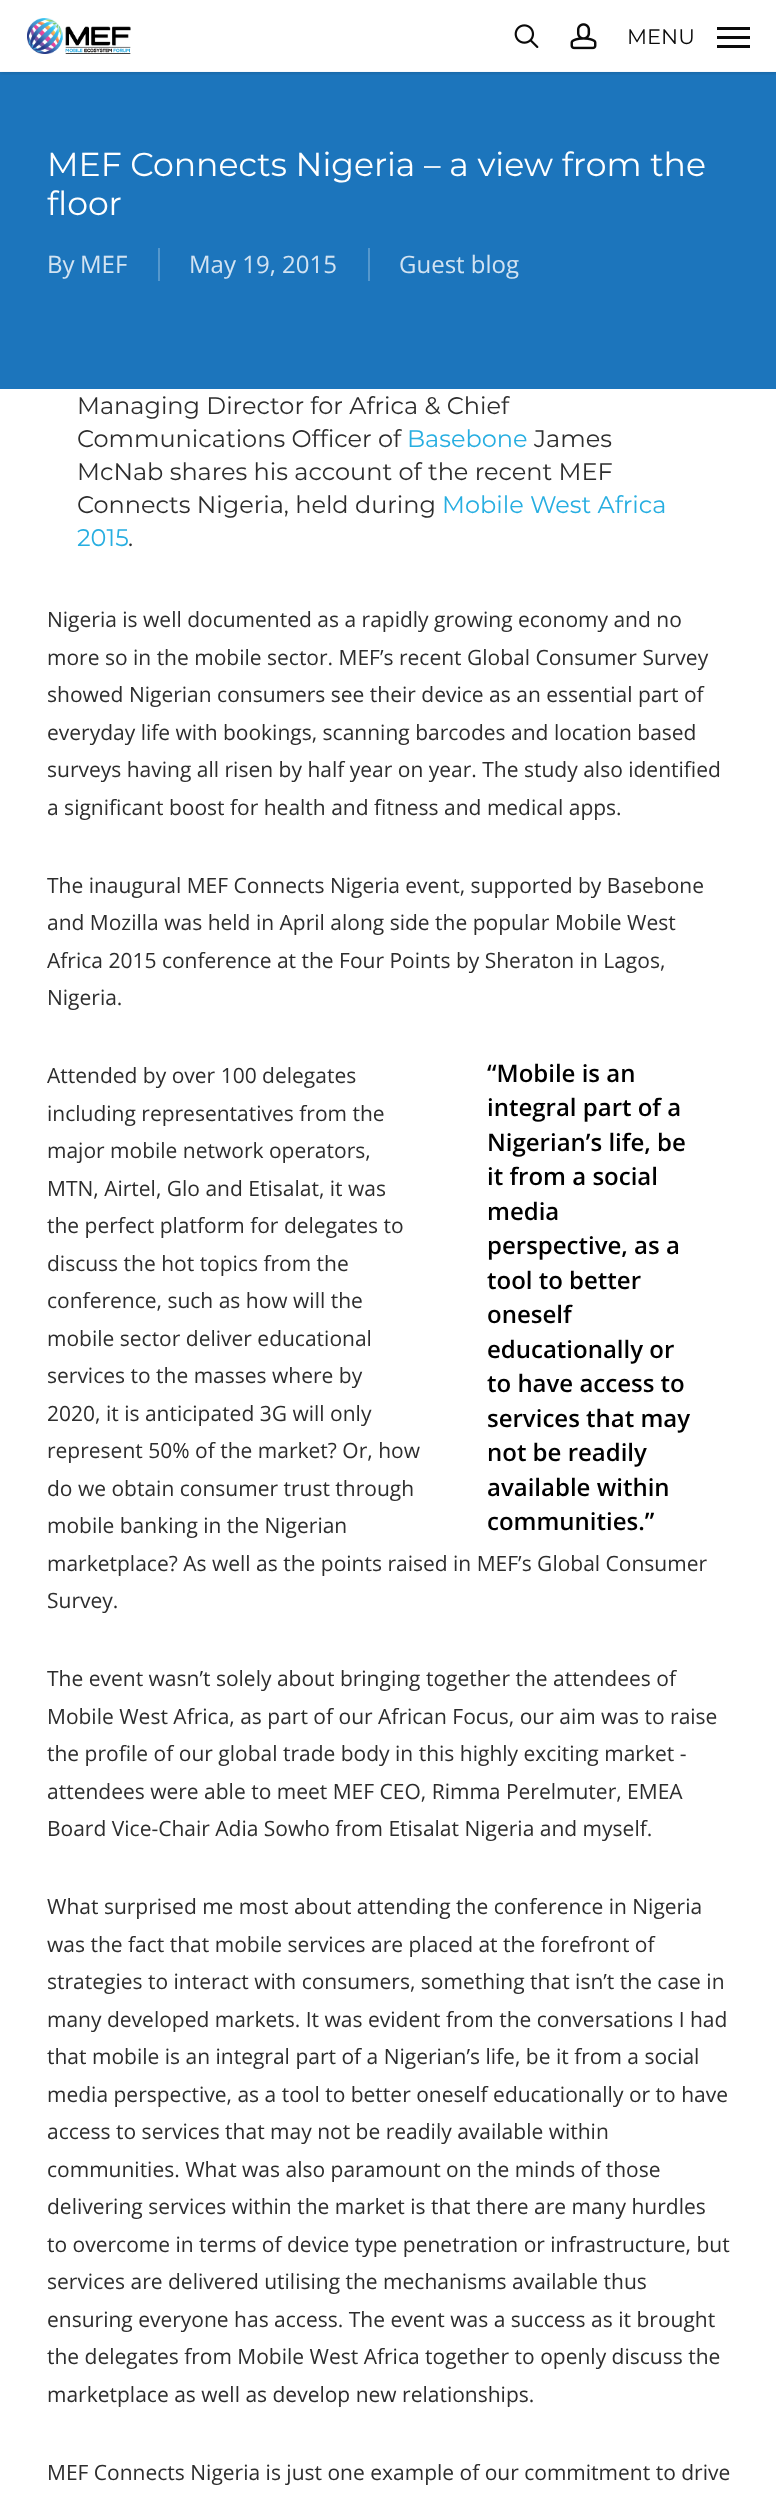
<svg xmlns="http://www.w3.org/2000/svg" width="776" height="2506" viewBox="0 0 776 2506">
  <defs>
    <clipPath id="clip1"><path d="M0 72h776v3H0z"/></clipPath>
  </defs>
  <rect width="100%" height="100%" fill="#fff"/>
  <path d="M0 72h776v317H0z" fill="#1c75bc"/>
  <path d="M0 71h776v1H0z" fill="#f6f9fc"/>
  <g clip-path="url(#clip1)">
    <path d="M0 0h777v72H0z" fill="#00000038" filter="blur(2px)"/>
  </g>
  <image x="27" y="18" width="104" height="36" href="img/1.png"/>
  <image x="514" y="24" width="25" height="24" href="img/2.png"/>
  <image x="570" y="23" width="27" height="27" href="img/3.png"/>
  <path d="M717 27h33v3H717z" fill="#0a0a0a"/>
  <path d="M717 45h33v3H717z" fill="#0a0a0a"/>
  <path d="M717 36h33v3H717z" fill="#0a0a0a"/>
  <path d="M158 248h2v33H158z" fill="#5598cd"/>
  <path d="M368 248h2v33H368z" fill="#5598cd"/>
  <text x="627" y="44" font-family="Montserrat" font-size="21" font-weight="100" fill="#0a0a0a">MENU</text>
  <g font-family="Montserrat" font-size="33.1" font-weight="100" fill="#fff">
    <text x="47" y="176">MEF Connects Nigeria – a view from the</text>
    <text x="47" y="215">floor</text>
  </g>
  <g font-family="Open Sans" font-size="24" fill="#d2e3f2">
    <text x="47" y="273">By</text>
    <text x="80" y="273">MEF</text>
    <text x="189" y="273">May 19, 2015</text>
    <text x="399" y="273">Guest blog</text>
  </g>
  <g font-family="Montserrat" font-size="24" font-weight="100" fill="#2d2d2d">
    <text x="77" y="414">Managing Director for Africa &amp; Chief</text>
    <text x="77" y="447">Communications Officer of</text>
  </g>
  <text x="407" y="447" font-family="Montserrat" font-size="24" font-weight="100" fill="#27aee1">Basebone</text>
  <g font-family="Montserrat" font-size="24" font-weight="100" fill="#2d2d2d">
    <text x="534" y="447">James</text>
    <text x="77" y="480">McNab shares his account of the recent MEF</text>
    <text x="77" y="513">Connects Nigeria, held during</text>
  </g>
  <g font-family="Montserrat" font-size="24" font-weight="100" fill="#27aee1">
    <text x="442" y="513">Mobile West Africa</text>
    <text x="77" y="546">2015</text>
  </g>
  <text x="128" y="546" font-family="Montserrat" font-size="24" font-weight="100" fill="#2d2d2d">.</text>
  <g font-family="Open Sans" font-size="21" fill="#2d2d2d">
    <text x="47" y="627">Nigeria is well documented as a rapidly growing economy and no</text>
    <text x="47" y="665">more so in the mobile sector. MEF’s recent Global Consumer Survey</text>
    <text x="47" y="702">showed Nigerian consumers see their device as an essential part of</text>
    <text x="47" y="740">everyday life with bookings, scanning barcodes and location based</text>
    <text x="47" y="777">surveys having all risen by half year on year. The study also identified</text>
    <text x="47" y="815">a significant boost for health and fitness and medical apps.</text>
    <text x="47" y="893">The inaugural MEF Connects Nigeria event, supported by Basebone</text>
    <text x="47" y="930">and Mozilla was held in April along side the popular Mobile West</text>
    <text x="47" y="968">Africa 2015 conference at the Four Points by Sheraton in Lagos,</text>
    <text x="47" y="1005">Nigeria.</text>
  </g>
  <g font-family="Open Sans" font-size="24" font-weight="600" fill="#000">
    <text x="487" y="1082">“Mobile is an</text>
    <text x="487" y="1116">integral part of a</text>
    <text x="487" y="1151">Nigerian’s life, be</text>
    <text x="487" y="1185">it from a social</text>
    <text x="487" y="1220">media</text>
    <text x="487" y="1254">perspective, as a</text>
    <text x="487" y="1289">tool to better</text>
    <text x="487" y="1323">oneself</text>
    <text x="487" y="1358">educationally or</text>
    <text x="487" y="1392">to have access to</text>
    <text x="487" y="1427">services that may</text>
    <text x="487" y="1461">not be readily</text>
    <text x="487" y="1496">available within</text>
    <text x="487" y="1530">communities.”</text>
  </g>
  <g font-family="Open Sans" font-size="21" fill="#2d2d2d">
    <text x="47" y="1083">Attended by over 100 delegates</text>
    <text x="47" y="1121">including representatives from the</text>
    <text x="47" y="1158">major mobile network operators,</text>
    <text x="47" y="1196">MTN, Airtel, Glo and Etisalat, it was</text>
    <text x="47" y="1233">the perfect platform for delegates to</text>
    <text x="47" y="1271">discuss the hot topics from the</text>
    <text x="47" y="1308">conference, such as how will the</text>
    <text x="47" y="1346">mobile sector deliver educational</text>
    <text x="47" y="1383">services to the masses where by</text>
    <text x="47" y="1421">2020, it is anticipated 3G will only</text>
    <text x="47" y="1458">represent 50% of the market? Or, how</text>
    <text x="47" y="1496">do we obtain consumer trust through</text>
    <text x="47" y="1533">mobile banking in the Nigerian</text>
    <text x="47" y="1571">marketplace? As well as the points raised in MEF’s Global Consumer</text>
    <text x="47" y="1608">Survey.</text>
    <text x="47" y="1686">The event wasn’t solely about bringing together the attendees of</text>
    <text x="47" y="1724">Mobile West Africa, as part of our African Focus, our aim was to raise</text>
    <text x="47" y="1761">the profile of our global trade body in this highly exciting market -</text>
    <text x="47" y="1799">attendees were able to meet MEF CEO, Rimma Perelmuter, EMEA</text>
    <text x="47" y="1836">Board Vice-Chair Adia Sowho from Etisalat Nigeria and myself.</text>
    <text x="47" y="1914">What surprised me most about attending the conference in Nigeria</text>
    <text x="47" y="1952">was the fact that mobile services are placed at the forefront of</text>
    <text x="47" y="1989">strategies to interact with consumers, something that isn’t the case in</text>
    <text x="47" y="2027">many developed markets. It was evident from the conversations I had</text>
    <text x="47" y="2064">that mobile is an integral part of a Nigerian’s life, be it from a social</text>
    <text x="47" y="2102">media perspective, as a tool to better oneself educationally or to have</text>
    <text x="47" y="2139">access to services that may not be readily available within</text>
    <text x="47" y="2177">communities. What was also paramount on the minds of those</text>
    <text x="47" y="2214">delivering services within the market is that there are many hurdles</text>
    <text x="47" y="2252">to overcome in terms of device type penetration or infrastructure, but</text>
    <text x="47" y="2289">services are delivered utilising the mechanisms available thus</text>
    <text x="47" y="2327">ensuring everyone has access. The event was a success as it brought</text>
    <text x="47" y="2364">the delegates from Mobile West Africa together to openly discuss the</text>
    <text x="47" y="2402">marketplace as well as develop new relationships.</text>
    <text x="47" y="2480">MEF Connects Nigeria is just one example of our commitment to drive</text>
  </g>
</svg>
